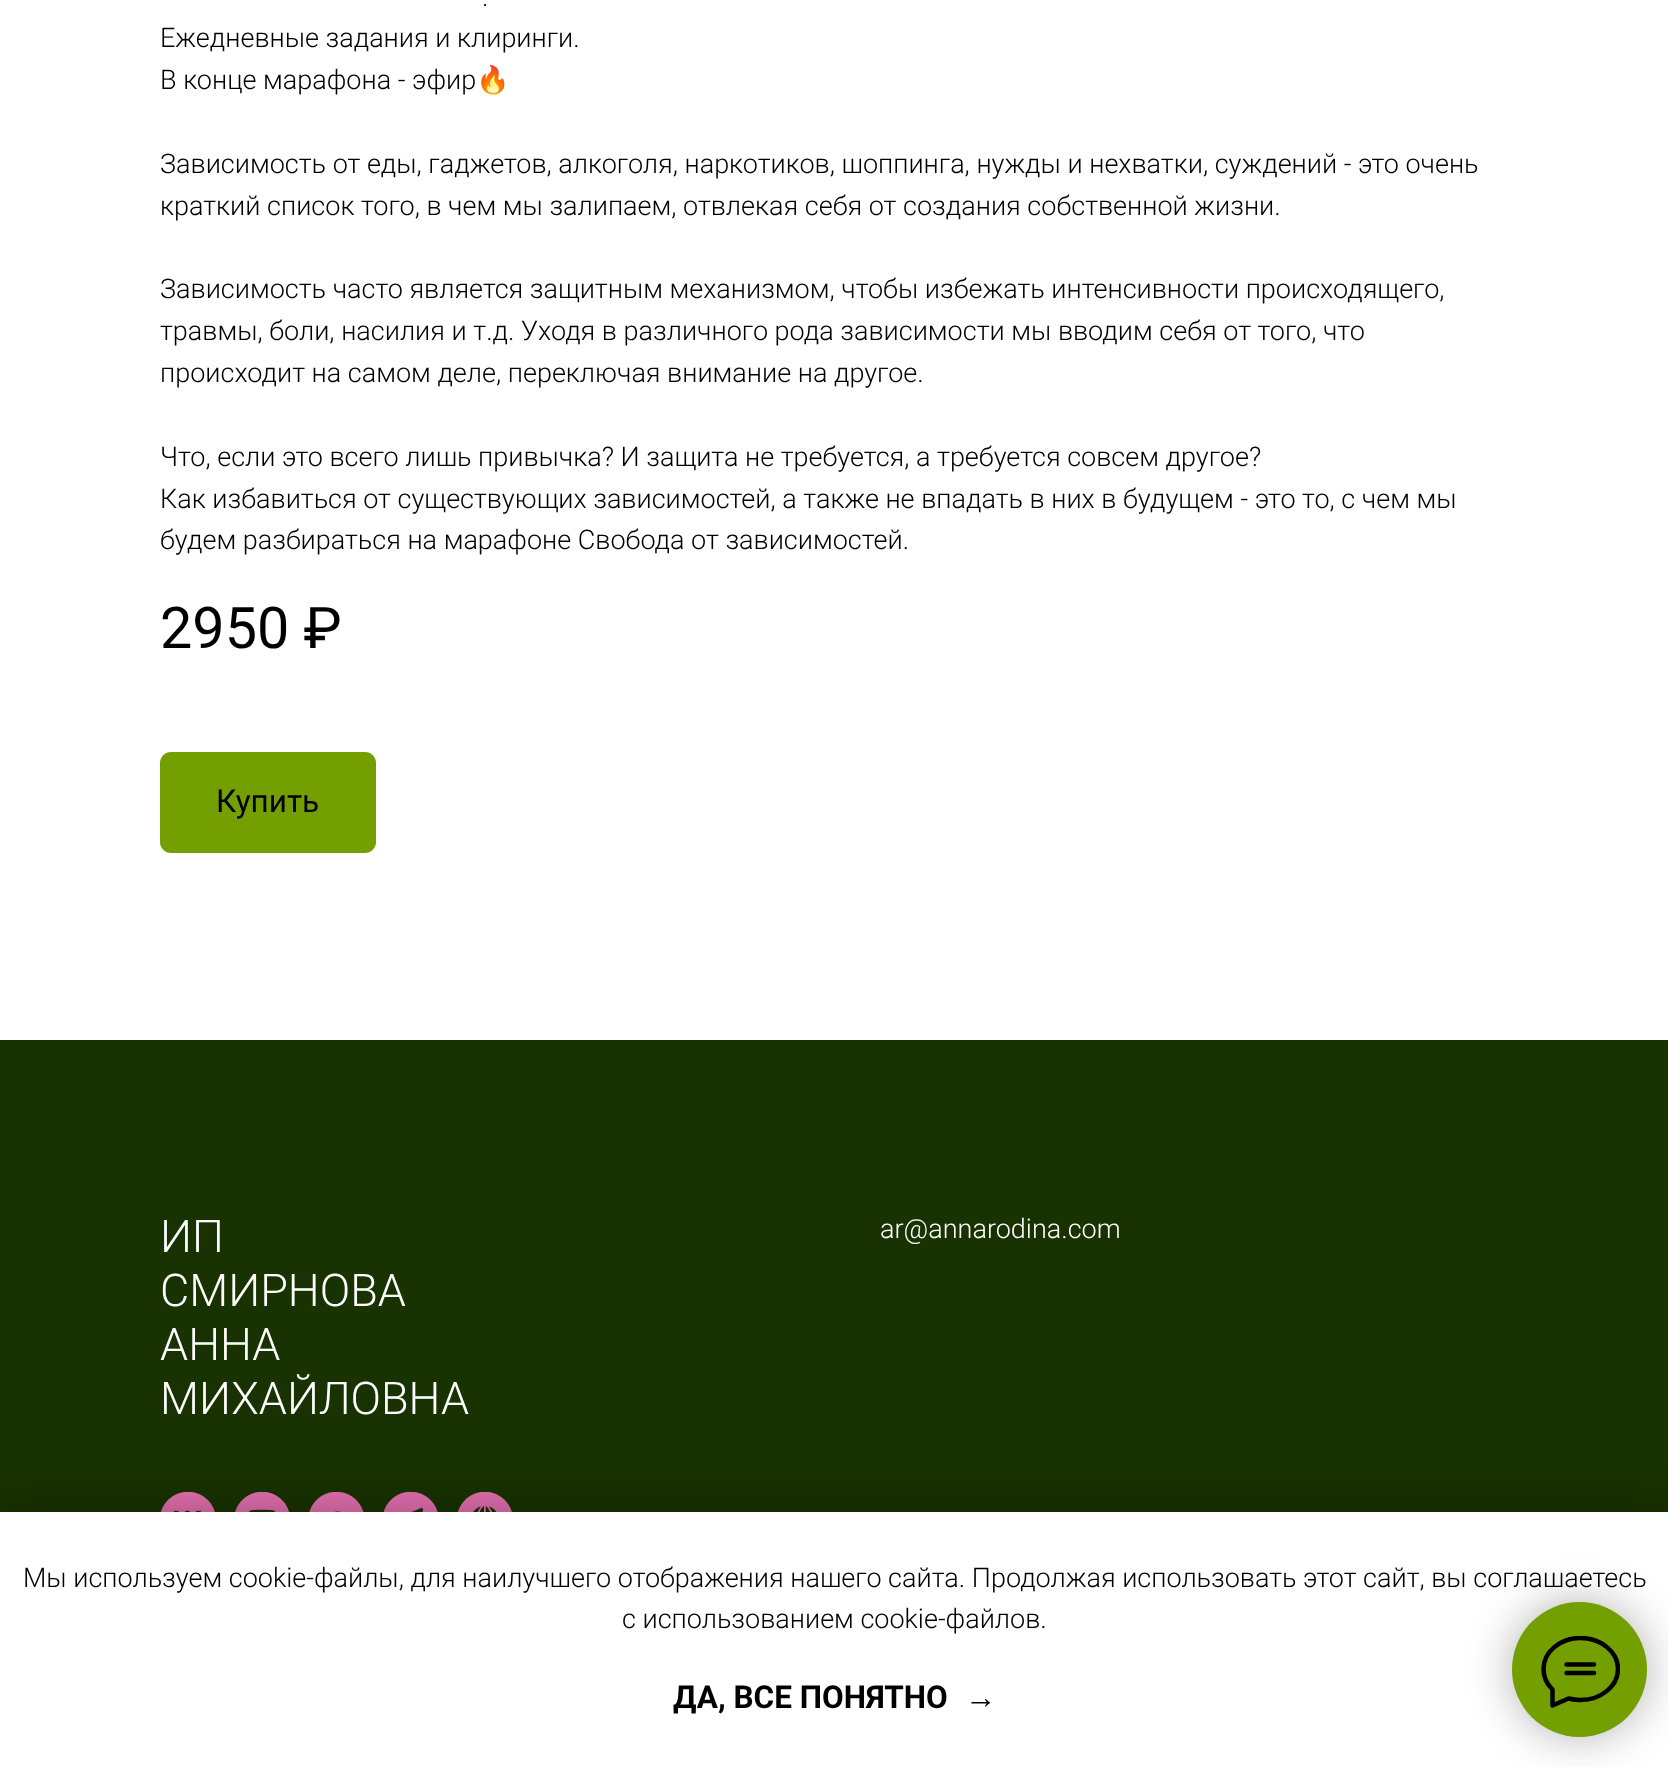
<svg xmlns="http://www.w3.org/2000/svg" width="1668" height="1767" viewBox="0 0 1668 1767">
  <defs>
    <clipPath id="clip1"><path d="M1541 1636h79v72H1541z"/></clipPath>
  </defs>
  <rect width="100%" height="100%" fill="#fff"/>
  <rect x="160" y="752" width="216" height="101" rx="11" fill="#739f00"/>
  <path d="M0 1040h1668v472H0z" fill="#193201"/>
  <image x="160" y="1492" width="55" height="20" href="img/1.png"/>
  <image x="235" y="1492" width="55" height="20" href="img/2.png"/>
  <image x="309" y="1492" width="55" height="20" href="img/3.png"/>
  <image x="383" y="1492" width="55" height="20" href="img/4.png"/>
  <image x="457" y="1492" width="55" height="20" href="img/5.png"/>
  <path d="M0 1512h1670v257H0z" fill="#0000004d" filter="blur(22.5px)"/>
  <path d="M0 1512h1668v255H0z" fill="#fff"/>
  <rect x="1512" y="1602" width="135" height="135" rx="67.5" fill="#0000004d" filter="blur(22.5px)"/>
  <circle cx="1579.5" cy="1669.5" r="67.5" fill="#739f00"/>
  <g clip-path="url(#clip1)">
    <path d="M1566.5 1664.5H1594M1566.5 1673H1594M1552 1689C1546.5 1683.5 1543.5 1676.5 1543.5 1669C1543.5 1652 1560 1638 1580.5 1638C1601 1638 1618 1652 1618 1669C1618 1686 1601 1700 1580.5 1700C1576.5 1700 1572.5 1699.5 1568.5 1698.5L1552.5 1705.5V1689.5Z" fill="none" stroke="#000" stroke-width="4.5" stroke-linecap="round" stroke-linejoin="round"/>
  </g>
  <g font-family="Roboto" font-size="27" font-weight="300" fill="#000">
    <text x="482" y="6">.</text>
    <text x="160" y="47">Ежедневные задания и клиринги.</text>
    <text x="160" y="89">В конце марафона - эфир</text>
  </g>
  <text x="476" y="89" font-family="Noto Color Emoji" font-size="27" fill="#000">🔥</text>
  <g font-family="Roboto" font-size="27" font-weight="300" fill="#000">
    <text x="160" y="173">Зависимость от еды, гаджетов, алкоголя, наркотиков, шоппинга, нужды и нехватки, суждений - это очень</text>
    <text x="160" y="215">краткий список того, в чем мы залипаем, отвлекая себя от создания собственной жизни.</text>
    <text x="160" y="298">Зависимость часто является защитным механизмом, чтобы избежать интенсивности происходящего,</text>
    <text x="160" y="340">травмы, боли, насилия и т.д. Уходя в различного рода зависимости мы вводим себя от того, что</text>
    <text x="160" y="382">происходит на самом деле, переключая внимание на другое.</text>
    <text x="160" y="466">Что, если это всего лишь привычка? И защита не требуется, а требуется совсем другое?</text>
    <text x="160" y="508">Как избавиться от существующих зависимостей, а также не впадать в них в будущем - это то, с чем мы</text>
    <text x="160" y="549">будем разбираться на марафоне Свобода от зависимостей.</text>
  </g>
  <text x="160" y="648" font-family="Roboto" font-size="57.5" fill="#000">2950 ₽</text>
  <text x="216" y="812" font-family="Roboto" font-size="31.5" fill="#000">Купить</text>
  <g font-family="Roboto" font-size="45" font-weight="300" fill="#fff">
    <text x="160" y="1252">ИП</text>
    <text x="160" y="1306">СМИРНОВА</text>
    <text x="160" y="1360">АННА</text>
    <text x="160" y="1414">МИХАЙЛОВНА</text>
  </g>
  <text x="880" y="1238" font-family="Roboto" font-size="27" font-weight="300" fill="#fff">ar@annarodina.com</text>
  <g font-family="Roboto" font-size="27" font-weight="300" fill="#000">
    <text x="23" y="1587">Мы используем cookie-файлы, для наилучшего отображения нашего сайта. Продолжая использовать этот сайт, вы соглашаетесь</text>
    <text x="622" y="1628">с использованием cookie-файлов.</text>
  </g>
  <text x="673" y="1708" font-family="Roboto" font-size="31.5" font-weight="bold" fill="#000">ДА, ВСЕ ПОНЯТНО</text>
  <text x="965" y="1708" font-family="Liberation Sans" font-size="31.5" font-weight="bold" fill="#000">→</text>
</svg>
